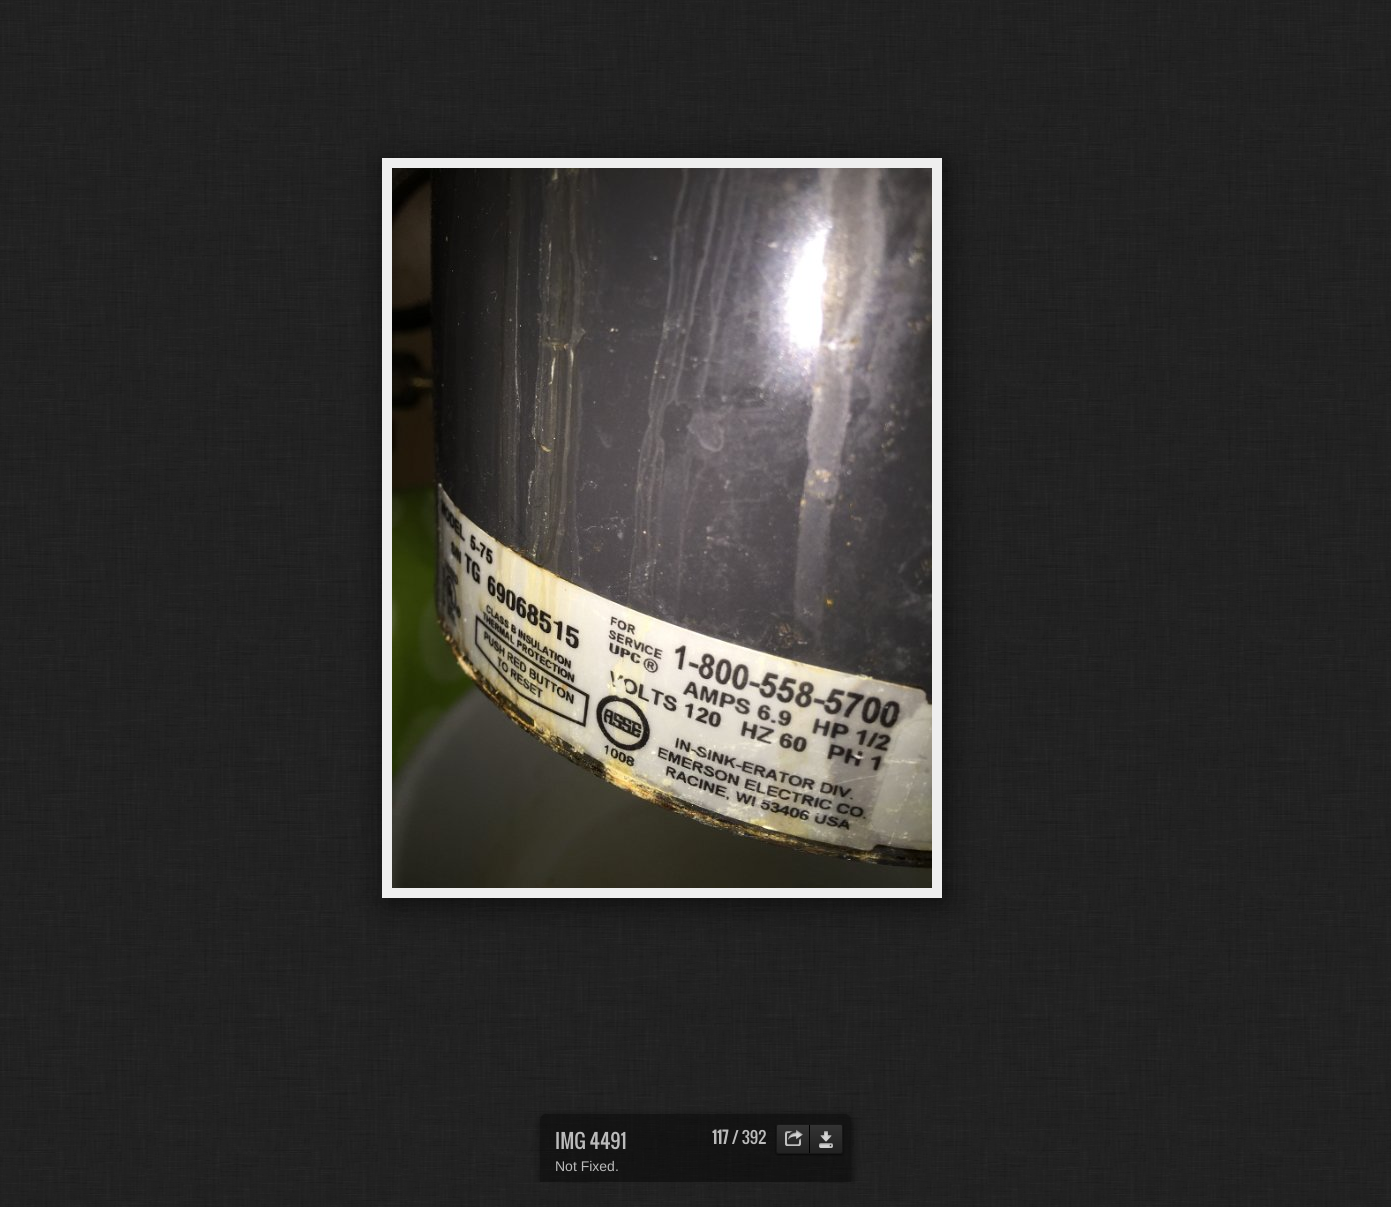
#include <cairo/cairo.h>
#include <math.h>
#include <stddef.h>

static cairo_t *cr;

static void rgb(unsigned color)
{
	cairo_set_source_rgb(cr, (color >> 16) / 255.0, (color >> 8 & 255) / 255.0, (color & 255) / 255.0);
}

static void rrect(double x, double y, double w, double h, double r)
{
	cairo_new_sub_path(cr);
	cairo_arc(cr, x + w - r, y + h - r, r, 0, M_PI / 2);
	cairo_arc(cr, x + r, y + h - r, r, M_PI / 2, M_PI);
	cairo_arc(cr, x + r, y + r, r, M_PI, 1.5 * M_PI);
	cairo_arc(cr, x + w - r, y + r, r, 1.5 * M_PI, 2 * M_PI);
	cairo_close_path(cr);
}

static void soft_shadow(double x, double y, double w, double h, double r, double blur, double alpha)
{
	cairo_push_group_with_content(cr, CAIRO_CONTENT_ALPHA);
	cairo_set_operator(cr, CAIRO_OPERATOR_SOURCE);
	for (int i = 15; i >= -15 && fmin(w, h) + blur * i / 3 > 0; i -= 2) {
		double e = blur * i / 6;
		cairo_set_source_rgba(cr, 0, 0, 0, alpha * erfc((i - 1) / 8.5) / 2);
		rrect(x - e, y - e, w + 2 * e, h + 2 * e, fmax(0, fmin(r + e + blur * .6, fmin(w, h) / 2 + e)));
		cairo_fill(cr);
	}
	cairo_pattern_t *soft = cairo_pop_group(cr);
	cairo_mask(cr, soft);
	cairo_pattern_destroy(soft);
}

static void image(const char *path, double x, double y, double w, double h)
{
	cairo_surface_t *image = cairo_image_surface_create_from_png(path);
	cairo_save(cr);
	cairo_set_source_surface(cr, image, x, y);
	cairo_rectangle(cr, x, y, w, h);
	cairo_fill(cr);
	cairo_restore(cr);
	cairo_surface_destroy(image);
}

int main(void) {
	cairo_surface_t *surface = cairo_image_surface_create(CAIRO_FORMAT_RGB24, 1391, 1207);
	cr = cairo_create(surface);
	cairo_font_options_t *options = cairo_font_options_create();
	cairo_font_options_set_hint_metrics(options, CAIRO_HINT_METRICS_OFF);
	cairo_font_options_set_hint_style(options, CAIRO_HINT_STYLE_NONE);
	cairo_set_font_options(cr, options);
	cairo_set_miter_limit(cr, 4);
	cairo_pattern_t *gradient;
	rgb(0x222222);
	cairo_paint(cr);
	image("img/1.png", 0, 1182, 1391, 25);
	image("img/2.png", 0, 0, 1391, 1182);
	rgb(0x000000);
	soft_shadow(385, 164, 560, 740, 0, 16, 0.6);
	rgb(0xeeeeee);
	cairo_rectangle(cr, 382, 158, 560, 740);
	cairo_fill(cr);
	image("img/3.png", 392, 168, 540, 720);
	cairo_save(cr);
	cairo_rectangle(cr, 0, 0, 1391, 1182);
	cairo_clip(cr);
	cairo_set_fill_rule(cr, CAIRO_FILL_RULE_EVEN_ODD);
	cairo_new_path(cr);
	cairo_move_to(cr, 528, 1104);
	cairo_line_to(cr, 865, 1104);
	cairo_line_to(cr, 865, 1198);
	cairo_line_to(cr, 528, 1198);
	cairo_close_path(cr);
	cairo_move_to(cr, 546, 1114);
	cairo_line_to(cr, 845, 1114);
	cairo_curve_to(cr, 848.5, 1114, 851, 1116.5, 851, 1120);
	cairo_line_to(cr, 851, 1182);
	cairo_line_to(cr, 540, 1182);
	cairo_line_to(cr, 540, 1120);
	cairo_curve_to(cr, 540, 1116.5, 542.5, 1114, 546, 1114);
	cairo_close_path(cr);
	cairo_clip(cr);
	rgb(0x000000);
	soft_shadow(541, 1117, 311, 68, 6, 4, 0.6);
	cairo_restore(cr);
	cairo_set_source_rgba(cr, 0, 0, 0, 0.4);
	cairo_new_path(cr);
	cairo_move_to(cr, 546, 1114);
	cairo_line_to(cr, 845, 1114);
	cairo_curve_to(cr, 848.5, 1114, 851, 1116.5, 851, 1120);
	cairo_line_to(cr, 851, 1182);
	cairo_line_to(cr, 540, 1182);
	cairo_line_to(cr, 540, 1120);
	cairo_curve_to(cr, 540, 1116.5, 542.5, 1114, 546, 1114);
	cairo_close_path(cr);
	cairo_fill(cr);
	rgb(0x000000);
	soft_shadow(776, 1125, 67, 30, 2, 1, 0.6);
	gradient = cairo_pattern_create_linear(810, 1125, 810, 1153);
	cairo_pattern_add_color_stop_rgba(gradient, 0, 0.2, 0.2, 0.2, 1);
	cairo_pattern_add_color_stop_rgba(gradient, 1, 0.133, 0.133, 0.133, 1);
	cairo_set_source(cr, gradient);
	cairo_pattern_destroy(gradient);
	rrect(777, 1125, 65, 28, 1);
	cairo_fill(cr);
	rrect(776.5, 1124.5, 66, 29, 1.5);
	rgb(0x181818);
	cairo_set_line_width(cr, 1);
	cairo_stroke(cr);
	image("img/4.png", 785, 1129, 18, 17);
	image("img/5.png", 819, 1131, 14, 17);
	rgb(0x000000);
	cairo_rectangle(cr, 809, 1125, 1, 28);
	cairo_fill(cr);
	cairo_select_font_face(cr, "Oswald", CAIRO_FONT_SLANT_NORMAL, CAIRO_FONT_WEIGHT_NORMAL);
	cairo_set_font_size(cr, 19.5);
	rgb(0xbbbbbb);
	cairo_move_to(cr, 555, 1149);
	cairo_show_text(cr, "IMG 4491");
	cairo_select_font_face(cr, "Liberation Sans", CAIRO_FONT_SLANT_NORMAL, CAIRO_FONT_WEIGHT_NORMAL);
	cairo_set_font_size(cr, 14);
	cairo_move_to(cr, 555, 1171);
	cairo_show_text(cr, "Not Fixed.");
	cairo_select_font_face(cr, "Oswald", CAIRO_FONT_SLANT_NORMAL, CAIRO_FONT_WEIGHT_BOLD);
	cairo_set_font_size(cr, 16);
	cairo_move_to(cr, 712, 1144);
	cairo_show_text(cr, "117");
	cairo_select_font_face(cr, "Oswald", CAIRO_FONT_SLANT_NORMAL, CAIRO_FONT_WEIGHT_NORMAL);
	cairo_move_to(cr, 732, 1144);
	cairo_show_text(cr, "/ 392");
	cairo_surface_write_to_png(surface, "page.png");
	cairo_font_options_destroy(options);
	cairo_destroy(cr);
	cairo_surface_destroy(surface);
	return 0;
}
